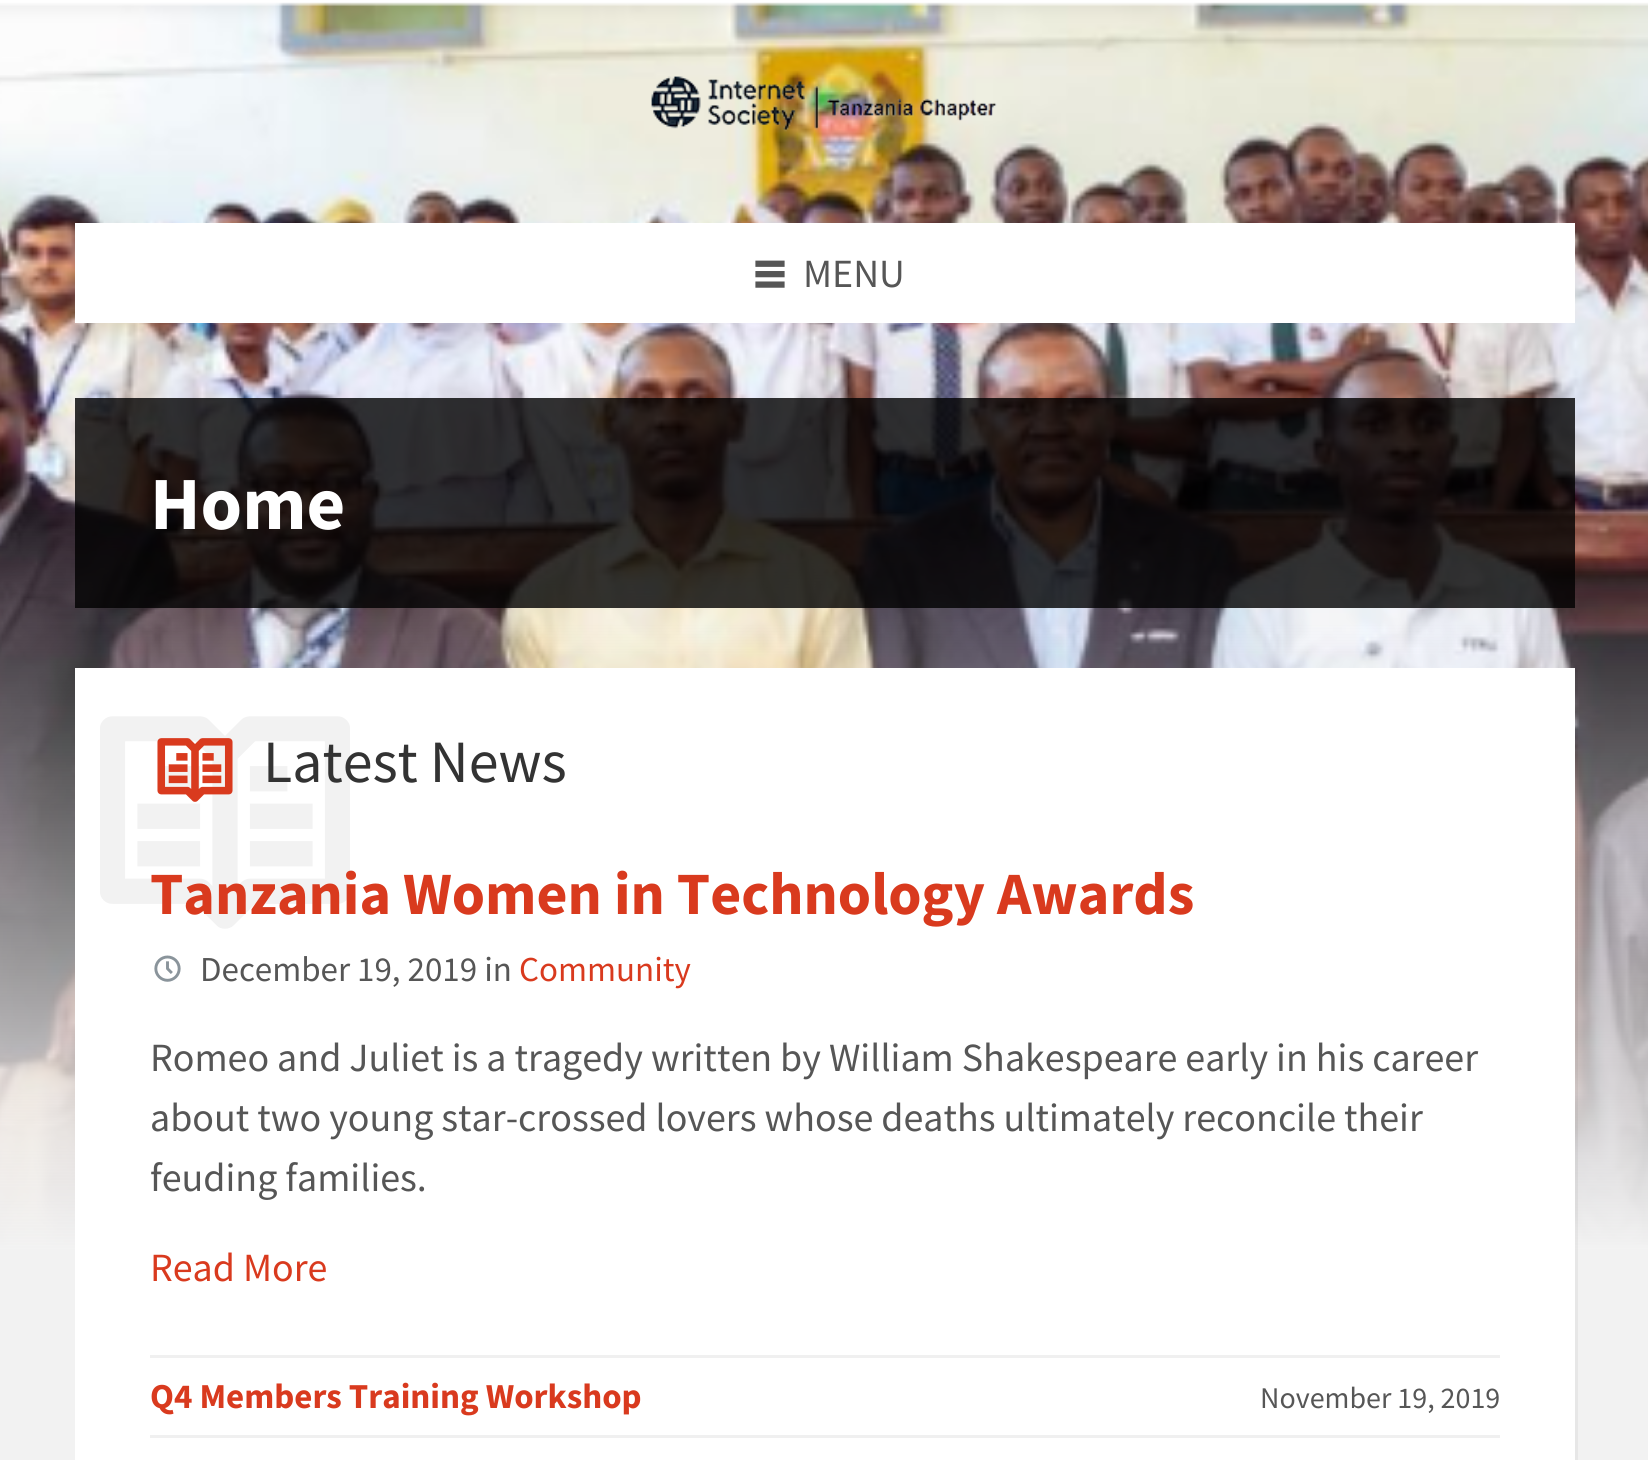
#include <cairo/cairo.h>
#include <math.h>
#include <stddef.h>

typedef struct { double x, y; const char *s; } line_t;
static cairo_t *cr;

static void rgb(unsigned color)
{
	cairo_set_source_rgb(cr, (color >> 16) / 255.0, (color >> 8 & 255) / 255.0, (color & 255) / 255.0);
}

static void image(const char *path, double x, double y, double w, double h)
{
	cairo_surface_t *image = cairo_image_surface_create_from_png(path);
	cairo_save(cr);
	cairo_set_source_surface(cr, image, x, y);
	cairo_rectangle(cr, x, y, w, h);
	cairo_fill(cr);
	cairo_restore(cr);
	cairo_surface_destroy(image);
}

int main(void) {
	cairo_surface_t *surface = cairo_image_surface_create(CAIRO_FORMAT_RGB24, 1648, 1460);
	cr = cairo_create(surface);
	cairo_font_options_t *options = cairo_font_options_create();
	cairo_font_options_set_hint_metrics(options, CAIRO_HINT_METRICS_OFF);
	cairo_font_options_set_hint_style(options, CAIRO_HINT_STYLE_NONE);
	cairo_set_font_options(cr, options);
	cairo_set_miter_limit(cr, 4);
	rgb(0xf2f2f2);
	cairo_paint(cr);
	image("img/1.png", 0, 0, 1648, 1250);
	image("img/2.png", 651, 76, 346, 56);
	rgb(0xffffff);
	cairo_rectangle(cr, 75, 223, 1500, 100);
	cairo_fill(cr);
	image("img/3.png", 755, 260, 30, 28);
	cairo_set_source_rgba(cr, 0, 0, 0, 0.8);
	cairo_rectangle(cr, 75, 398, 1500, 210);
	cairo_fill(cr);
	cairo_set_source_rgba(cr, 0, 0, 0, 0.05);
	cairo_new_path(cr);
	cairo_move_to(cr, 78, 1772);
	cairo_line_to(cr, 78, 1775);
	cairo_line_to(cr, 1578, 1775);
	cairo_line_to(cr, 1578, 670);
	cairo_line_to(cr, 1575, 670);
	cairo_line_to(cr, 1575, 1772);
	cairo_close_path(cr);
	cairo_fill(cr);
	rgb(0xffffff);
	cairo_rectangle(cr, 75, 668, 1500, 792);
	cairo_fill(cr);
	image("img/4.png", 100, 716, 250, 213);
	image("img/5.png", 157, 738, 76, 64);
	image("img/6.png", 154, 955, 27, 27);
	rgb(0xf0f0f0);
	cairo_rectangle(cr, 150, 1355, 1350, 3);
	cairo_fill(cr);
	cairo_rectangle(cr, 150, 1435, 1350, 3);
	cairo_fill(cr);
	cairo_select_font_face(cr, "Source Sans Pro", CAIRO_FONT_SLANT_NORMAL, CAIRO_FONT_WEIGHT_NORMAL);
	cairo_set_font_size(cr, 40);
	rgb(0x565656);
	cairo_move_to(cr, 803, 287);
	cairo_show_text(cr, "MENU");
	cairo_select_font_face(cr, "Source Sans Pro", CAIRO_FONT_SLANT_NORMAL, CAIRO_FONT_WEIGHT_BOLD);
	cairo_set_font_size(cr, 75);
	rgb(0xffffff);
	cairo_move_to(cr, 150, 529);
	cairo_show_text(cr, "Home");
	cairo_select_font_face(cr, "Source Sans Pro", CAIRO_FONT_SLANT_NORMAL, CAIRO_FONT_WEIGHT_NORMAL);
	cairo_set_font_size(cr, 60);
	rgb(0x333333);
	cairo_move_to(cr, 263, 782);
	cairo_show_text(cr, "Latest News");
	cairo_select_font_face(cr, "Source Sans Pro", CAIRO_FONT_SLANT_NORMAL, CAIRO_FONT_WEIGHT_BOLD);
	rgb(0xd93a1e);
	cairo_move_to(cr, 150, 914);
	cairo_show_text(cr, "Tanzania Women in Technology Awards");
	cairo_select_font_face(cr, "Source Sans Pro", CAIRO_FONT_SLANT_NORMAL, CAIRO_FONT_WEIGHT_NORMAL);
	cairo_set_font_size(cr, 35);
	rgb(0x565656);
	cairo_move_to(cr, 200, 981);
	cairo_show_text(cr, "December 19, 2019 in");
	rgb(0xd93a1e);
	cairo_move_to(cr, 519, 981);
	cairo_show_text(cr, "Community");
	cairo_set_font_size(cr, 40);
	rgb(0x565656);
	{
		static const line_t items[] = {
			{150, 1071, "Romeo and Juliet is a tragedy written by William Shakespeare early in his career"},
			{150, 1131, "about two young star-crossed lovers whose deaths ultimately reconcile their"},
			{150, 1191, "feuding families."},
		};
		for (size_t i = 0; i < sizeof items / sizeof *items; i++) {
			cairo_move_to(cr, items[i].x, items[i].y);
			cairo_show_text(cr, items[i].s);
		}
	}
	rgb(0xd93a1e);
	cairo_move_to(cr, 150, 1281);
	cairo_show_text(cr, "Read More");
	cairo_select_font_face(cr, "Source Sans Pro", CAIRO_FONT_SLANT_NORMAL, CAIRO_FONT_WEIGHT_BOLD);
	cairo_set_font_size(cr, 35);
	cairo_move_to(cr, 150, 1408);
	cairo_show_text(cr, "Q4 Members Training Workshop");
	cairo_select_font_face(cr, "Source Sans Pro", CAIRO_FONT_SLANT_NORMAL, CAIRO_FONT_WEIGHT_NORMAL);
	cairo_set_font_size(cr, 30);
	rgb(0x565656);
	cairo_move_to(cr, 1260, 1408);
	cairo_show_text(cr, "November 19, 2019");
	cairo_surface_write_to_png(surface, "page.png");
	cairo_font_options_destroy(options);
	cairo_destroy(cr);
	cairo_surface_destroy(surface);
	return 0;
}
